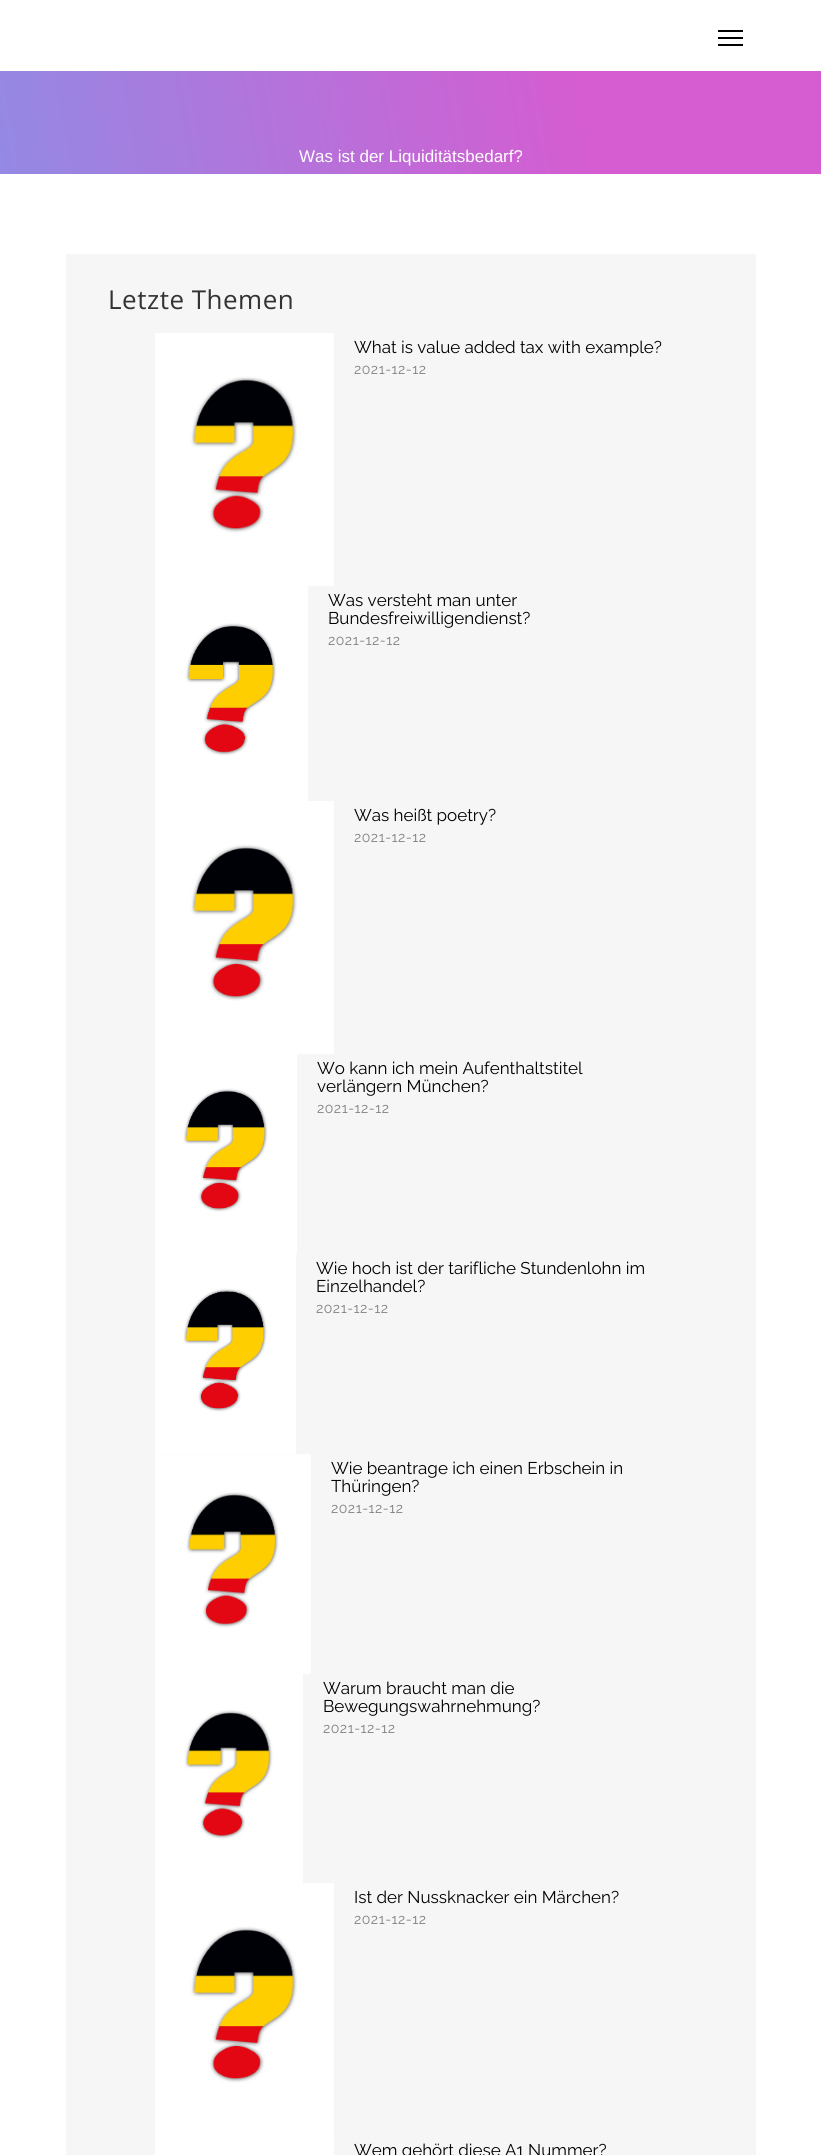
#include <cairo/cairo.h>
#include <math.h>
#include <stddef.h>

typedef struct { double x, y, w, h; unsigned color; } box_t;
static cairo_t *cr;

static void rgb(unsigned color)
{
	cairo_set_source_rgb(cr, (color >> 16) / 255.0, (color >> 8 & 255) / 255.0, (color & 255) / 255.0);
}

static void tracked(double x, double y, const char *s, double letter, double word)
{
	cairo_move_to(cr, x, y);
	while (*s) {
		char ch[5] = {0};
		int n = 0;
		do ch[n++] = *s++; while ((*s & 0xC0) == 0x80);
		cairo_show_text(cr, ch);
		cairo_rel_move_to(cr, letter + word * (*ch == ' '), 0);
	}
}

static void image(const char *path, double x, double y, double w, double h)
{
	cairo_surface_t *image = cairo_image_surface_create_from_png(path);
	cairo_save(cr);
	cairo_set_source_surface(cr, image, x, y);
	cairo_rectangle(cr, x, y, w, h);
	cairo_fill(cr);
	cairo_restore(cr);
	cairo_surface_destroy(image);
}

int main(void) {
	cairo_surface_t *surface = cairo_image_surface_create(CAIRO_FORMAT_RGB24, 821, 2155);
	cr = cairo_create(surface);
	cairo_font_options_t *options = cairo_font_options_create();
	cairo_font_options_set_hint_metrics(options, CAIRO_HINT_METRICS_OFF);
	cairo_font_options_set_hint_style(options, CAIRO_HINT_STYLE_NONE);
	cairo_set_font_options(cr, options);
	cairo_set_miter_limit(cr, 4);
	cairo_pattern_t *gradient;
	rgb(0xffffff);
	cairo_paint(cr);
	{
		static const box_t items[] = {
			{718, 30, 25, 2, 0x000000},
			{718, 37, 25, 2, 0x000000},
			{718, 44, 25, 2, 0x000000},
		};
		for (size_t i = 0; i < sizeof items / sizeof *items; i++) {
			rgb(items[i].color);
			cairo_rectangle(cr, items[i].x, items[i].y, items[i].w, items[i].h);
			cairo_fill(cr);
		}
	}
	gradient = cairo_pattern_create_linear(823, 14, -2.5, 160);
	cairo_pattern_add_color_stop_rgba(gradient, 0.3, 0.835, 0.361, 0.82, 1);
	cairo_pattern_add_color_stop_rgba(gradient, 1, 0.58, 0.537, 0.894, 1);
	cairo_set_source(cr, gradient);
	cairo_pattern_destroy(gradient);
	cairo_rectangle(cr, 0, 71, 821, 103);
	cairo_fill(cr);
	rgb(0xf6f6f6);
	cairo_rectangle(cr, 66, 254, 690, 1901);
	cairo_fill(cr);
	image("img/1.png", 155, 333, 179, 253);
	image("img/2.png", 155, 586, 153, 215);
	image("img/3.png", 155, 801, 179, 253);
	image("img/4.png", 155, 1054, 142, 200);
	image("img/5.png", 155, 1254, 141, 200);
	image("img/6.png", 155, 1454, 156, 220);
	image("img/7.png", 155, 1674, 148, 209);
	image("img/3.png", 155, 1883, 179, 253);
	rgb(0xffffff);
	cairo_rectangle(cr, 155, 2136, 179, 19);
	cairo_fill(cr);
	cairo_select_font_face(cr, "Liberation Sans", CAIRO_FONT_SLANT_NORMAL, CAIRO_FONT_WEIGHT_NORMAL);
	cairo_set_font_size(cr, 17);
	cairo_move_to(cr, 299, 162);
	cairo_show_text(cr, "Was ist der Liquiditätsbedarf?");
	cairo_select_font_face(cr, "Open Sans", CAIRO_FONT_SLANT_NORMAL, CAIRO_FONT_WEIGHT_NORMAL);
	cairo_set_font_size(cr, 26);
	rgb(0x333333);
	tracked(108, 309, "Letzte Themen", 0.5, 0);
	cairo_select_font_face(cr, "Raleway", CAIRO_FONT_SLANT_NORMAL, CAIRO_FONT_WEIGHT_NORMAL);
	cairo_set_font_size(cr, 17);
	rgb(0x000000);
	cairo_move_to(cr, 354, 353);
	cairo_show_text(cr, "What is value added tax with example?");
	cairo_set_font_size(cr, 14);
	rgb(0x808080);
	tracked(354, 374, "2021-12-12", 0.5, 0);
	cairo_set_font_size(cr, 17);
	rgb(0x000000);
	cairo_move_to(cr, 328, 606);
	cairo_show_text(cr, "Was versteht man unter");
	cairo_move_to(cr, 328, 624);
	cairo_show_text(cr, "Bundesfreiwilligendienst?");
	cairo_set_font_size(cr, 14);
	rgb(0x808080);
	tracked(328, 645, "2021-12-12", 0.5, 0);
	cairo_set_font_size(cr, 17);
	rgb(0x000000);
	cairo_move_to(cr, 354, 821);
	cairo_show_text(cr, "Was heißt poetry?");
	cairo_set_font_size(cr, 14);
	rgb(0x808080);
	tracked(354, 842, "2021-12-12", 0.5, 0);
	cairo_set_font_size(cr, 17);
	rgb(0x000000);
	cairo_move_to(cr, 317, 1074);
	cairo_show_text(cr, "Wo kann ich mein Aufenthaltstitel");
	cairo_move_to(cr, 317, 1092);
	cairo_show_text(cr, "verlängern München?");
	cairo_set_font_size(cr, 14);
	rgb(0x808080);
	tracked(317, 1113, "2021-12-12", 0.5, 0);
	cairo_set_font_size(cr, 17);
	rgb(0x000000);
	cairo_move_to(cr, 316, 1274);
	cairo_show_text(cr, "Wie hoch ist der tarifliche Stundenlohn im");
	cairo_move_to(cr, 316, 1292);
	cairo_show_text(cr, "Einzelhandel?");
	cairo_set_font_size(cr, 14);
	rgb(0x808080);
	tracked(316, 1313, "2021-12-12", 0.5, 0);
	cairo_set_font_size(cr, 17);
	rgb(0x000000);
	cairo_move_to(cr, 331, 1474);
	cairo_show_text(cr, "Wie beantrage ich einen Erbschein in");
	cairo_move_to(cr, 331, 1492);
	cairo_show_text(cr, "Thüringen?");
	cairo_set_font_size(cr, 14);
	rgb(0x808080);
	tracked(331, 1513, "2021-12-12", 0.5, 0);
	cairo_set_font_size(cr, 17);
	rgb(0x000000);
	cairo_move_to(cr, 323, 1694);
	cairo_show_text(cr, "Warum braucht man die");
	cairo_move_to(cr, 323, 1712);
	cairo_show_text(cr, "Bewegungswahrnehmung?");
	cairo_set_font_size(cr, 14);
	rgb(0x808080);
	tracked(323, 1733, "2021-12-12", 0.5, 0);
	cairo_set_font_size(cr, 17);
	rgb(0x000000);
	cairo_move_to(cr, 354, 1903);
	cairo_show_text(cr, "Ist der Nussknacker ein Märchen?");
	cairo_set_font_size(cr, 14);
	rgb(0x808080);
	tracked(354, 1924, "2021-12-12", 0.5, 0);
	cairo_set_font_size(cr, 17);
	rgb(0x000000);
	cairo_move_to(cr, 354, 2156);
	cairo_show_text(cr, "Wem gehört diese A1 Nummer?");
	cairo_surface_write_to_png(surface, "page.png");
	cairo_font_options_destroy(options);
	cairo_destroy(cr);
	cairo_surface_destroy(surface);
	return 0;
}
